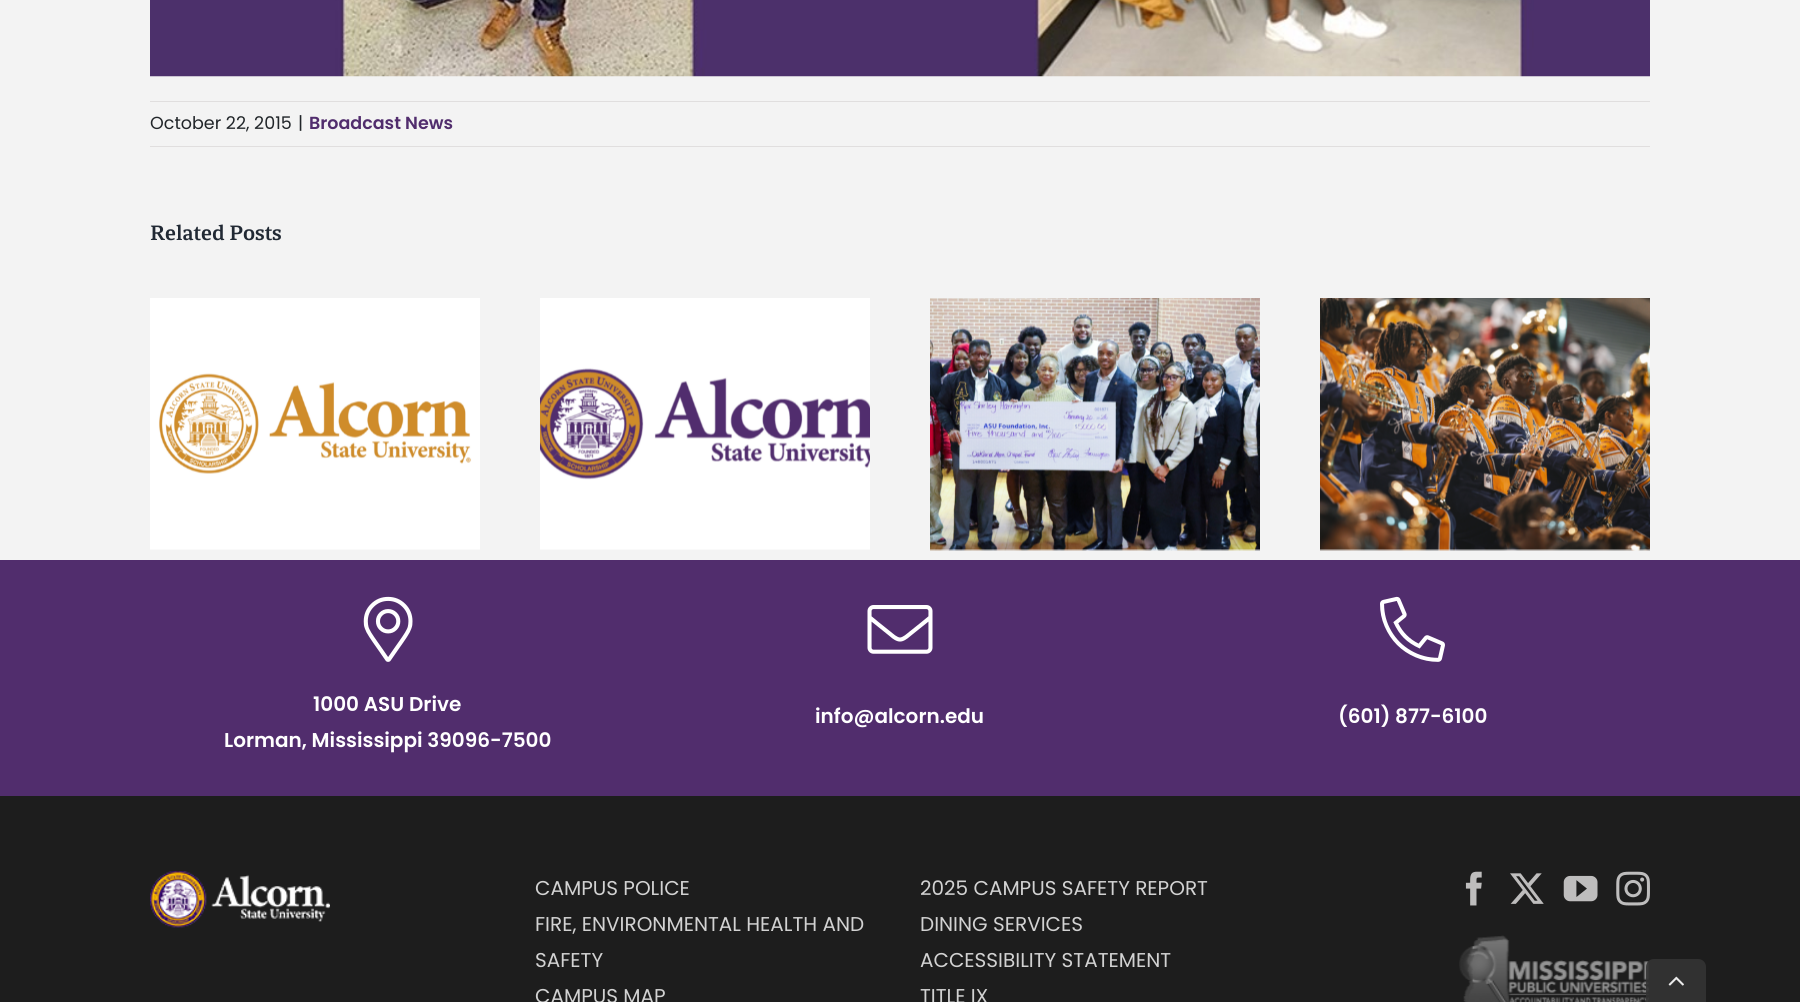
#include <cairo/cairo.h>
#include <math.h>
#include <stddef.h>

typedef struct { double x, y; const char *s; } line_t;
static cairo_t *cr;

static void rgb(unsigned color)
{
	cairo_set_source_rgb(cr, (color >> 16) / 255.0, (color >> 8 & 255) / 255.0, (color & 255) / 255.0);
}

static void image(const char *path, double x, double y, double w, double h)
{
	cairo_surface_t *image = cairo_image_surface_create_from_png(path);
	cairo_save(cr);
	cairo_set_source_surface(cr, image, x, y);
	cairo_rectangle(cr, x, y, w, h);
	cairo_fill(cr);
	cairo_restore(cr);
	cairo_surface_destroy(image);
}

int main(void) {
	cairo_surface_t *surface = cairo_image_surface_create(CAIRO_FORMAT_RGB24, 1800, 1002);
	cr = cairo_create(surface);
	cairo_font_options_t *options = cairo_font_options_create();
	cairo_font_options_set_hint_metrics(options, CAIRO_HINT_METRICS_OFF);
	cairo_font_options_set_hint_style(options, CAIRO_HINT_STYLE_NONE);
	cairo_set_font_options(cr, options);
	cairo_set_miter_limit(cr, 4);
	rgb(0xf3f3f3);
	cairo_paint(cr);
	image("img/1.png", 150, 0, 750, 77);
	image("img/2.png", 900, 0, 750, 77);
	rgb(0xe0dede);
	cairo_rectangle(cr, 150, 101, 1500, 1);
	cairo_fill(cr);
	cairo_rectangle(cr, 150, 146, 1500, 1);
	cairo_fill(cr);
	image("img/3.png", 150, 298, 330, 252);
	image("img/4.png", 540, 298, 330, 252);
	image("img/5.png", 930, 298, 330, 253);
	image("img/6.png", 1320, 298, 330, 253);
	rgb(0x512d6d);
	cairo_rectangle(cr, 0, 560, 1800, 236);
	cairo_fill(cr);
	image("img/7.png", 363, 596, 50, 66);
	image("img/8.png", 867, 605, 66, 49);
	image("img/9.png", 1380, 596, 65, 66);
	rgb(0x1d1d1d);
	cairo_rectangle(cr, 0, 796, 1800, 206);
	cairo_fill(cr);
	image("img/10.png", 150, 871, 180, 57);
	image("img/11.png", 1465, 871, 17, 35);
	image("img/12.png", 1510, 873, 34, 31);
	image("img/13.png", 1563, 875, 35, 27);
	image("img/14.png", 1616, 871, 34, 35);
	image("img/15.png", 1459, 935, 191, 67);
	cairo_set_source_rgba(cr, 0.2, 0.2, 0.2, 0.9);
	cairo_new_path(cr);
	cairo_move_to(cr, 1654, 959);
	cairo_line_to(cr, 1698, 959);
	cairo_curve_to(cr, 1702.5, 959, 1706, 962.5, 1706, 967);
	cairo_line_to(cr, 1706, 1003);
	cairo_line_to(cr, 1646, 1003);
	cairo_line_to(cr, 1646, 967);
	cairo_curve_to(cr, 1646, 962.5, 1649.5, 959, 1654, 959);
	cairo_close_path(cr);
	cairo_fill(cr);
	image("img/16.png", 1668, 976, 16, 10);
	cairo_select_font_face(cr, "Poppins", CAIRO_FONT_SLANT_NORMAL, CAIRO_FONT_WEIGHT_NORMAL);
	cairo_set_font_size(cr, 17.5);
	rgb(0x212529);
	cairo_move_to(cr, 150, 129);
	cairo_show_text(cr, "October 22, 2015");
	cairo_move_to(cr, 298, 129);
	cairo_show_text(cr, "|");
	cairo_select_font_face(cr, "Poppins SemiBold", CAIRO_FONT_SLANT_NORMAL, CAIRO_FONT_WEIGHT_NORMAL);
	rgb(0x512d6d);
	cairo_move_to(cr, 309, 129);
	cairo_show_text(cr, "Broadcast News");
	cairo_select_font_face(cr, "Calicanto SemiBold", CAIRO_FONT_SLANT_NORMAL, CAIRO_FONT_WEIGHT_NORMAL);
	cairo_set_font_size(cr, 22.5);
	rgb(0x212934);
	cairo_move_to(cr, 150, 240);
	cairo_show_text(cr, "Related Posts");
	cairo_select_font_face(cr, "Poppins SemiBold", CAIRO_FONT_SLANT_NORMAL, CAIRO_FONT_WEIGHT_NORMAL);
	cairo_set_font_size(cr, 20);
	rgb(0xffffff);
	{
		static const line_t items[] = {
			{313, 711, "1000 ASU Drive"},
			{224, 747, "Lorman, Mississippi 39096-7500"},
			{815, 723, "info@alcorn.edu"},
			{1338, 723, "(601) 877-6100"},
		};
		for (size_t i = 0; i < sizeof items / sizeof *items; i++) {
			cairo_move_to(cr, items[i].x, items[i].y);
			cairo_show_text(cr, items[i].s);
		}
	}
	cairo_select_font_face(cr, "Poppins", CAIRO_FONT_SLANT_NORMAL, CAIRO_FONT_WEIGHT_NORMAL);
	rgb(0xd2d2d2);
	{
		static const line_t items[] = {
			{535, 895, "CAMPUS POLICE"},
			{535, 931, "FIRE, ENVIRONMENTAL HEALTH AND"},
			{535, 967, "SAFETY"},
			{535, 1003, "CAMPUS MAP"},
			{920, 895, "2025 CAMPUS SAFETY REPORT"},
			{920, 931, "DINING SERVICES"},
			{920, 967, "ACCESSIBILITY STATEMENT"},
			{920, 1003, "TITLE IX"},
		};
		for (size_t i = 0; i < sizeof items / sizeof *items; i++) {
			cairo_move_to(cr, items[i].x, items[i].y);
			cairo_show_text(cr, items[i].s);
		}
	}
	cairo_surface_write_to_png(surface, "page.png");
	cairo_font_options_destroy(options);
	cairo_destroy(cr);
	cairo_surface_destroy(surface);
	return 0;
}
